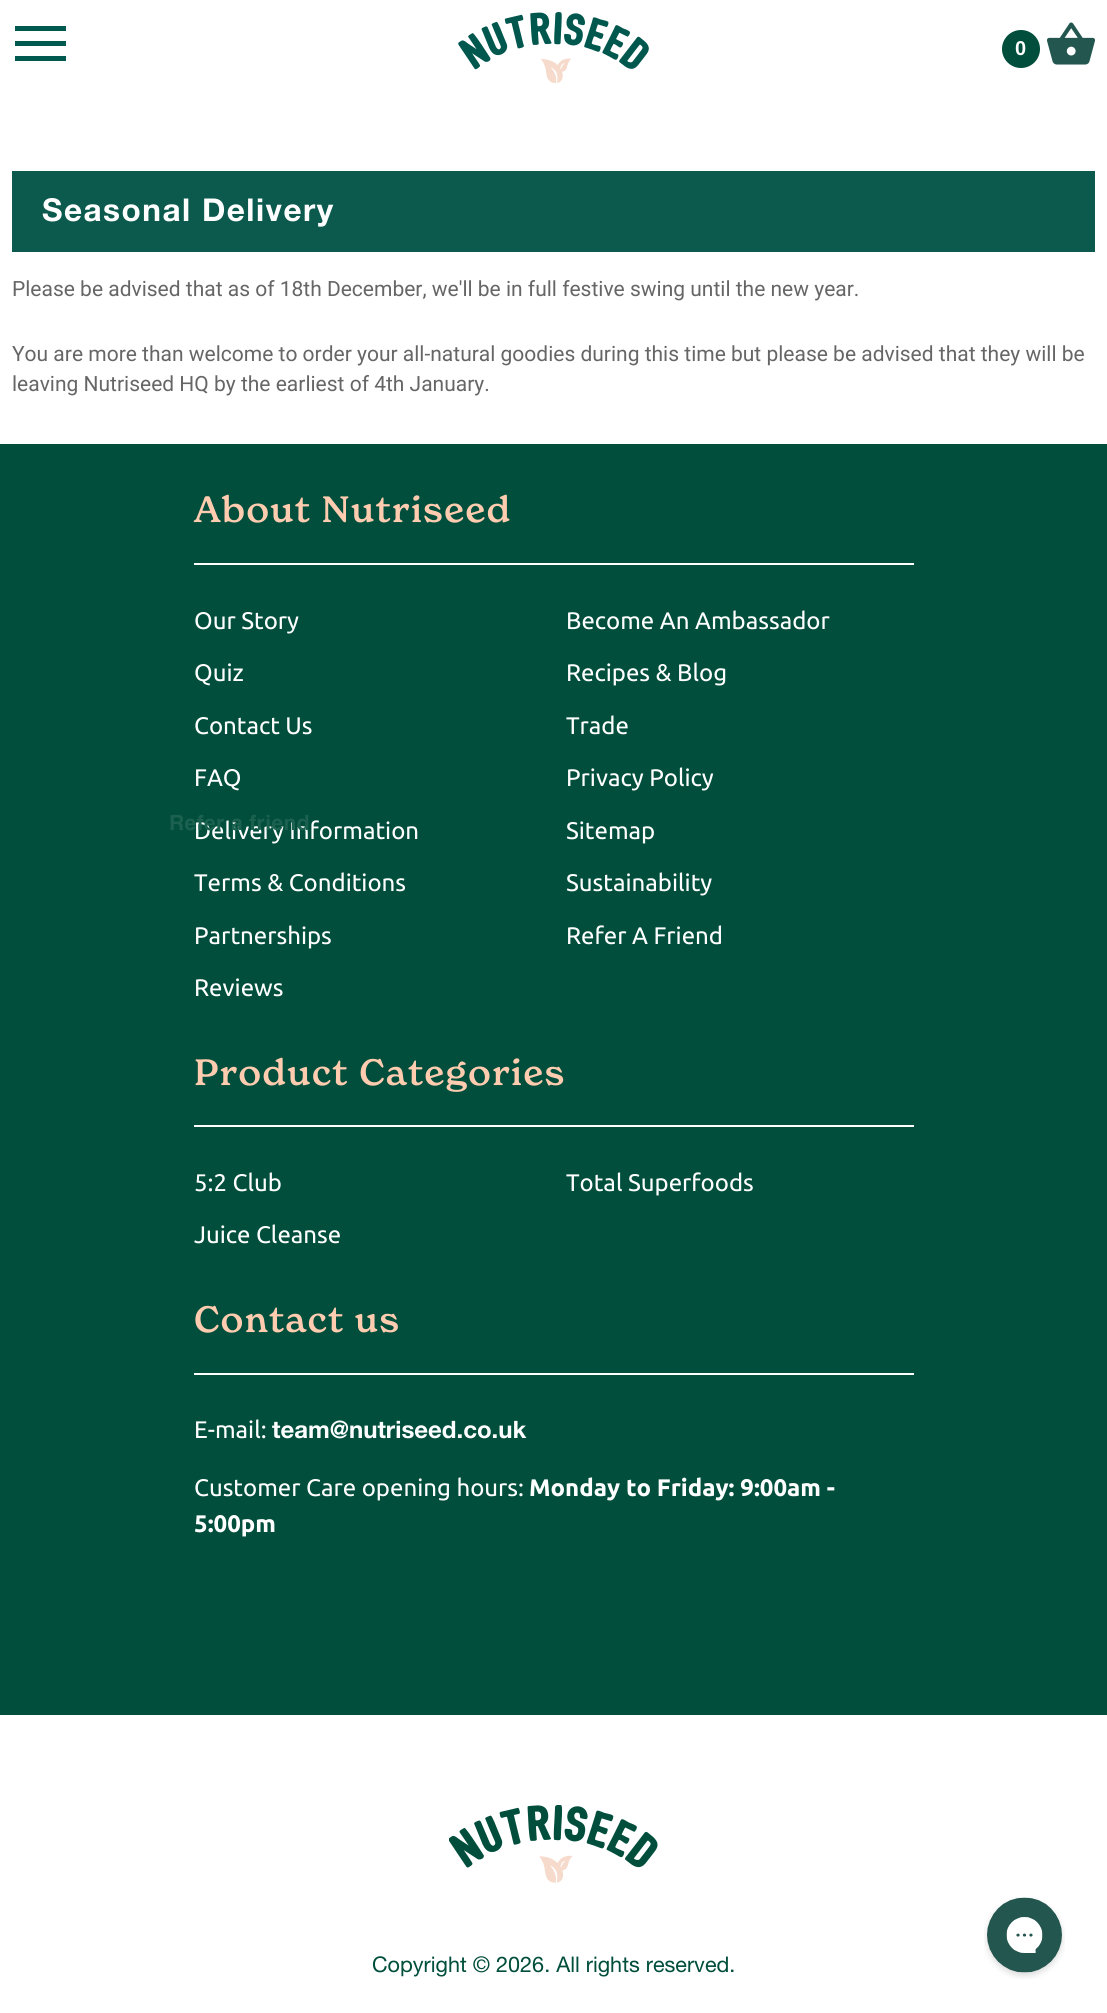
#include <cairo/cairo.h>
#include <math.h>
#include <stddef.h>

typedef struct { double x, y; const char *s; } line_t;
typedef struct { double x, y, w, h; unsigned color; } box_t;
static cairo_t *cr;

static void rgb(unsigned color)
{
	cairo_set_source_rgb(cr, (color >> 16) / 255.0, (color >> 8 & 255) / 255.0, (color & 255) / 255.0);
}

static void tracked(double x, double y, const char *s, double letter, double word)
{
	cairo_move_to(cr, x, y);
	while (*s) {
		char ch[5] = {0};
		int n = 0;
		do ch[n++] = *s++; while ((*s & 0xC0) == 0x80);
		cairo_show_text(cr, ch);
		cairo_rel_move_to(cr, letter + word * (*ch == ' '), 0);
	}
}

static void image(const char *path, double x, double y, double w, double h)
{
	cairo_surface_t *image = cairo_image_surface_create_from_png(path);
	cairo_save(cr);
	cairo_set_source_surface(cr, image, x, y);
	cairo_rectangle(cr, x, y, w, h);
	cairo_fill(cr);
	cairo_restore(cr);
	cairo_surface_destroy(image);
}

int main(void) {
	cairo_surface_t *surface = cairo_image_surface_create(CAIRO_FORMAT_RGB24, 1107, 2013);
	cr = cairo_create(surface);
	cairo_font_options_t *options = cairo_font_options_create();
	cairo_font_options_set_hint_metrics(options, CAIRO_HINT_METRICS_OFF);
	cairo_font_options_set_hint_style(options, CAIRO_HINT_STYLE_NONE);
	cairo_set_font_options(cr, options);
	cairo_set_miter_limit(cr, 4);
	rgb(0xffffff);
	cairo_paint(cr);
	{
		static const box_t items[] = {
			{15, 26, 51, 5, 0x00594e},
			{15, 41, 51, 5, 0x00594e},
			{15, 56, 51, 5, 0x00594e},
		};
		for (size_t i = 0; i < sizeof items / sizeof *items; i++) {
			rgb(items[i].color);
			cairo_rectangle(cr, items[i].x, items[i].y, items[i].w, items[i].h);
			cairo_fill(cr);
		}
	}
	image("img/1.png", 458, 12, 191, 71);
	image("img/2.png", 1047, 22, 48, 43);
	rgb(0x004e3b);
	cairo_arc(cr, 1021, 49, 19, 0, 2 * M_PI);
	cairo_fill(cr);
	{
		static const box_t items[] = {
			{12, 171, 1083, 81, 0x0c594d},
			{0, 444, 1107, 1271, 0x004e3b},
			{194, 563, 720, 2, 0xffffff},
			{194, 1125, 720, 2, 0xffffff},
			{194, 1373, 720, 2, 0xffffff},
		};
		for (size_t i = 0; i < sizeof items / sizeof *items; i++) {
			rgb(items[i].color);
			cairo_rectangle(cr, items[i].x, items[i].y, items[i].w, items[i].h);
			cairo_fill(cr);
		}
	}
	image("img/3.png", 449, 1805, 209, 78);
	image("img/4.png", 984, 1897, 81, 82);
	cairo_select_font_face(cr, "Liberation Sans", CAIRO_FONT_SLANT_NORMAL, CAIRO_FONT_WEIGHT_BOLD);
	cairo_set_font_size(cr, 20);
	cairo_move_to(cr, 1015, 55);
	cairo_show_text(cr, "0");
	cairo_select_font_face(cr, "Helvetica Neue", CAIRO_FONT_SLANT_NORMAL, CAIRO_FONT_WEIGHT_BOLD);
	cairo_set_font_size(cr, 31.5);
	tracked(42, 221, "Seasonal Delivery", 1.5, 0);
	cairo_select_font_face(cr, "Roboto", CAIRO_FONT_SLANT_NORMAL, CAIRO_FONT_WEIGHT_NORMAL);
	cairo_set_font_size(cr, 21);
	rgb(0x666666);
	{
		static const line_t items[] = {
			{12, 296, "Please be advised that as of 18th December, we'll be in full festive swing until the new year."},
			{12, 361, "You are more than welcome to order your all-natural goodies during this time but please be advised that they will be"},
			{12, 391, "leaving Nutriseed HQ by the earliest of 4th January."},
		};
		for (size_t i = 0; i < sizeof items / sizeof *items; i++) {
			cairo_move_to(cr, items[i].x, items[i].y);
			cairo_show_text(cr, items[i].s);
		}
	}
	cairo_select_font_face(cr, "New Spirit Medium", CAIRO_FONT_SLANT_NORMAL, CAIRO_FONT_WEIGHT_NORMAL);
	cairo_set_font_size(cr, 36);
	rgb(0xffccb0);
	tracked(194, 522, "About Nutriseed", 1.5, 0);
	cairo_select_font_face(cr, "Ubuntu", CAIRO_FONT_SLANT_NORMAL, CAIRO_FONT_WEIGHT_NORMAL);
	cairo_set_font_size(cr, 24);
	rgb(0xffffff);
	{
		static const line_t items[] = {
			{194, 629, "Our Story"},
			{566, 629, "Become An Ambassador"},
			{194, 681, "Quiz"},
			{566, 681, "Recipes & Blog"},
			{194, 734, "Contact Us"},
			{566, 734, "Trade"},
			{194, 786, "FAQ"},
			{566, 786, "Privacy Policy"},
			{194, 839, "Delivery Information"},
			{566, 839, "Sitemap"},
			{194, 891, "Terms & Conditions"},
			{566, 891, "Sustainability"},
			{194, 944, "Partnerships"},
			{566, 944, "Refer A Friend"},
			{194, 996, "Reviews"},
		};
		for (size_t i = 0; i < sizeof items / sizeof *items; i++) {
			cairo_move_to(cr, items[i].x, items[i].y);
			cairo_show_text(cr, items[i].s);
		}
	}
	cairo_select_font_face(cr, "New Spirit Medium", CAIRO_FONT_SLANT_NORMAL, CAIRO_FONT_WEIGHT_NORMAL);
	cairo_set_font_size(cr, 36);
	rgb(0xffccb0);
	tracked(194, 1085, "Product Categories", 1.5, 0);
	cairo_select_font_face(cr, "Ubuntu", CAIRO_FONT_SLANT_NORMAL, CAIRO_FONT_WEIGHT_NORMAL);
	cairo_set_font_size(cr, 24);
	rgb(0xffffff);
	{
		static const line_t items[] = {
			{194, 1191, "5:2 Club"},
			{566, 1191, "Total Superfoods"},
			{194, 1243, "Juice Cleanse"},
		};
		for (size_t i = 0; i < sizeof items / sizeof *items; i++) {
			cairo_move_to(cr, items[i].x, items[i].y);
			cairo_show_text(cr, items[i].s);
		}
	}
	cairo_select_font_face(cr, "New Spirit Medium", CAIRO_FONT_SLANT_NORMAL, CAIRO_FONT_WEIGHT_NORMAL);
	cairo_set_font_size(cr, 36);
	rgb(0xffccb0);
	tracked(194, 1332, "Contact us", 1.5, 0);
	cairo_select_font_face(cr, "Ubuntu", CAIRO_FONT_SLANT_NORMAL, CAIRO_FONT_WEIGHT_NORMAL);
	cairo_set_font_size(cr, 24);
	rgb(0xffffff);
	cairo_move_to(cr, 194, 1438);
	cairo_show_text(cr, "E-mail:");
	cairo_select_font_face(cr, "Helvetica Neue", CAIRO_FONT_SLANT_NORMAL, CAIRO_FONT_WEIGHT_BOLD);
	cairo_move_to(cr, 272, 1438);
	cairo_show_text(cr, "team@nutriseed.co.uk");
	cairo_select_font_face(cr, "Ubuntu", CAIRO_FONT_SLANT_NORMAL, CAIRO_FONT_WEIGHT_NORMAL);
	cairo_move_to(cr, 194, 1496);
	cairo_show_text(cr, "Customer Care opening hours:");
	cairo_select_font_face(cr, "Ubuntu", CAIRO_FONT_SLANT_NORMAL, CAIRO_FONT_WEIGHT_BOLD);
	cairo_move_to(cr, 529, 1496);
	cairo_show_text(cr, "Monday to Friday: 9:00am -");
	cairo_move_to(cr, 194, 1532);
	cairo_show_text(cr, "5:00pm");
	cairo_select_font_face(cr, "Helvetica Neue", CAIRO_FONT_SLANT_NORMAL, CAIRO_FONT_WEIGHT_NORMAL);
	cairo_set_font_size(cr, 21.6);
	rgb(0x004e3b);
	cairo_move_to(cr, 372, 1972);
	cairo_show_text(cr, "Copyright © 2026. All rights reserved.");
	cairo_select_font_face(cr, "Helvetica", CAIRO_FONT_SLANT_NORMAL, CAIRO_FONT_WEIGHT_BOLD);
	cairo_set_font_size(cr, 21);
	rgb(0x1c6150);
	tracked(169, 830, "Refer a friend", 0.4, 0);
	cairo_surface_write_to_png(surface, "page.png");
	cairo_font_options_destroy(options);
	cairo_destroy(cr);
	cairo_surface_destroy(surface);
	return 0;
}
